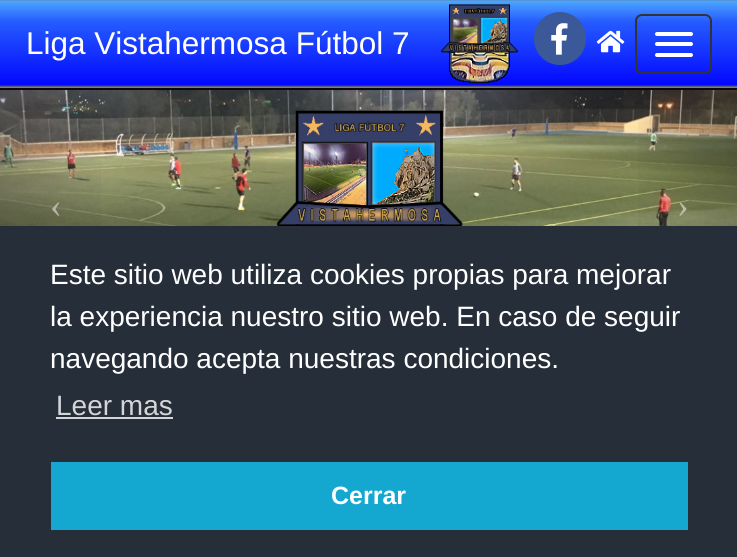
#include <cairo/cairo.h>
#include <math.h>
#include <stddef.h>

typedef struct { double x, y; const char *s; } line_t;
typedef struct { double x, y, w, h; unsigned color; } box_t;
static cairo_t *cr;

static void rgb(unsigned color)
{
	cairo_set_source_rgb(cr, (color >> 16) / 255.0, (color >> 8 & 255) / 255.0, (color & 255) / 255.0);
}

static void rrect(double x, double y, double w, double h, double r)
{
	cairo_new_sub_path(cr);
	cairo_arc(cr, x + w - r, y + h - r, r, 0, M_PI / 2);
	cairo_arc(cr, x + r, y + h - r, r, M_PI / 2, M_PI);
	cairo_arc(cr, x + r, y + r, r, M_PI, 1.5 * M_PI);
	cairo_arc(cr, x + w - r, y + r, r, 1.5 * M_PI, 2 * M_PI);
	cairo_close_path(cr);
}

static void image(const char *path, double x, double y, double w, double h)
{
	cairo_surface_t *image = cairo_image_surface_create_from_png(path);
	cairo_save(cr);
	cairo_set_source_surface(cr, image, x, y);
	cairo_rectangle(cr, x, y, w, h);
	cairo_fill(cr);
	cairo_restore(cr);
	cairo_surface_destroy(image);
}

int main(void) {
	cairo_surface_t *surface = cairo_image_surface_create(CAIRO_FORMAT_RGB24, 737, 557);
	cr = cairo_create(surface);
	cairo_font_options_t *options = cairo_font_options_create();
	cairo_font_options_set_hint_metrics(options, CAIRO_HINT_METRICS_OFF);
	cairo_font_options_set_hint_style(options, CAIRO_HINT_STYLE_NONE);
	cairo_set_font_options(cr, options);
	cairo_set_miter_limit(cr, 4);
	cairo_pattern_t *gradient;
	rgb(0xffffff);
	cairo_paint(cr);
	image("img/1.png", 0, 0, 737, 88);
	rgb(0x080808);
	cairo_rectangle(cr, 0, 88, 737, 2);
	cairo_fill(cr);
	image("img/2.png", 441, 4, 77, 80);
	rgb(0x3b5998);
	rrect(534, 12, 52, 53, 26);
	cairo_fill(cr);
	image("img/3.png", 551, 23, 17, 32);
	image("img/4.png", 596, 30, 29, 23);
	rrect(636, 15, 75, 58, 6);
	rgb(0x333333);
	cairo_stroke(cr);
	rgb(0xffffff);
	rrect(655, 32, 38, 4, 2);
	cairo_fill(cr);
	rrect(655, 42, 38, 4, 2);
	cairo_fill(cr);
	rrect(655, 53, 38, 4, 2);
	cairo_fill(cr);
	image("img/5.png", 0, 90, 737, 136);
	gradient = cairo_pattern_create_linear(0, 206, 110, 206);
	cairo_pattern_add_color_stop_rgba(gradient, 0, 0, 0, 0, 0.25);
	cairo_pattern_add_color_stop_rgba(gradient, 1, 0, 0, 0, 0);
	cairo_set_source(cr, gradient);
	cairo_pattern_destroy(gradient);
	cairo_rectangle(cr, 0, 90, 101, 136);
	cairo_fill(cr);
	gradient = cairo_pattern_create_linear(628, 206, 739, 206);
	cairo_pattern_add_color_stop_rgba(gradient, 0, 0, 0, 0, 0);
	cairo_pattern_add_color_stop_rgba(gradient, 1, 0, 0, 0, 0.25);
	cairo_set_source(cr, gradient);
	cairo_pattern_destroy(gradient);
	cairo_rectangle(cr, 638, 90, 99, 136);
	cairo_fill(cr);
	{
		static const box_t items[] = {
			{0, 226, 737, 331, 0x252e39},
			{56, 417, 117, 2, 0xd3d5d7},
			{51, 462, 637, 68, 0x14a7d0},
		};
		for (size_t i = 0; i < sizeof items / sizeof *items; i++) {
			rgb(items[i].color);
			cairo_rectangle(cr, items[i].x, items[i].y, items[i].w, items[i].h);
			cairo_fill(cr);
		}
	}
	cairo_select_font_face(cr, "Liberation Sans", CAIRO_FONT_SLANT_NORMAL, CAIRO_FONT_WEIGHT_NORMAL);
	cairo_set_font_size(cr, 31.5);
	rgb(0xffffff);
	cairo_move_to(cr, 26, 54);
	cairo_show_text(cr, "Liga Vistahermosa Fútbol 7");
	cairo_select_font_face(cr, "Liberation Serif", CAIRO_FONT_SLANT_NORMAL, CAIRO_FONT_WEIGHT_NORMAL);
	cairo_set_font_size(cr, 35);
	rgb(0xb6b7a8);
	cairo_move_to(cr, 50, 217);
	cairo_show_text(cr, "‹");
	rgb(0xbabea8);
	cairo_move_to(cr, 677, 217);
	cairo_show_text(cr, "›");
	cairo_select_font_face(cr, "Liberation Sans", CAIRO_FONT_SLANT_NORMAL, CAIRO_FONT_WEIGHT_NORMAL);
	cairo_set_font_size(cr, 28);
	rgb(0xffffff);
	{
		static const line_t items[] = {
			{50, 284, "Este sitio web utiliza cookies propias para mejorar"},
			{50, 326, "la experiencia nuestro sitio web. En caso de seguir"},
			{50, 368, "navegando acepta nuestras condiciones."},
		};
		for (size_t i = 0; i < sizeof items / sizeof *items; i++) {
			cairo_move_to(cr, items[i].x, items[i].y);
			cairo_show_text(cr, items[i].s);
		}
	}
	rgb(0xd3d5d7);
	cairo_move_to(cr, 56, 415);
	cairo_show_text(cr, "Leer mas");
	cairo_select_font_face(cr, "Liberation Sans", CAIRO_FONT_SLANT_NORMAL, CAIRO_FONT_WEIGHT_BOLD);
	cairo_set_font_size(cr, 25);
	rgb(0xffffff);
	cairo_move_to(cr, 331, 504);
	cairo_show_text(cr, "Cerrar");
	cairo_surface_write_to_png(surface, "page.png");
	cairo_font_options_destroy(options);
	cairo_destroy(cr);
	cairo_surface_destroy(surface);
	return 0;
}
